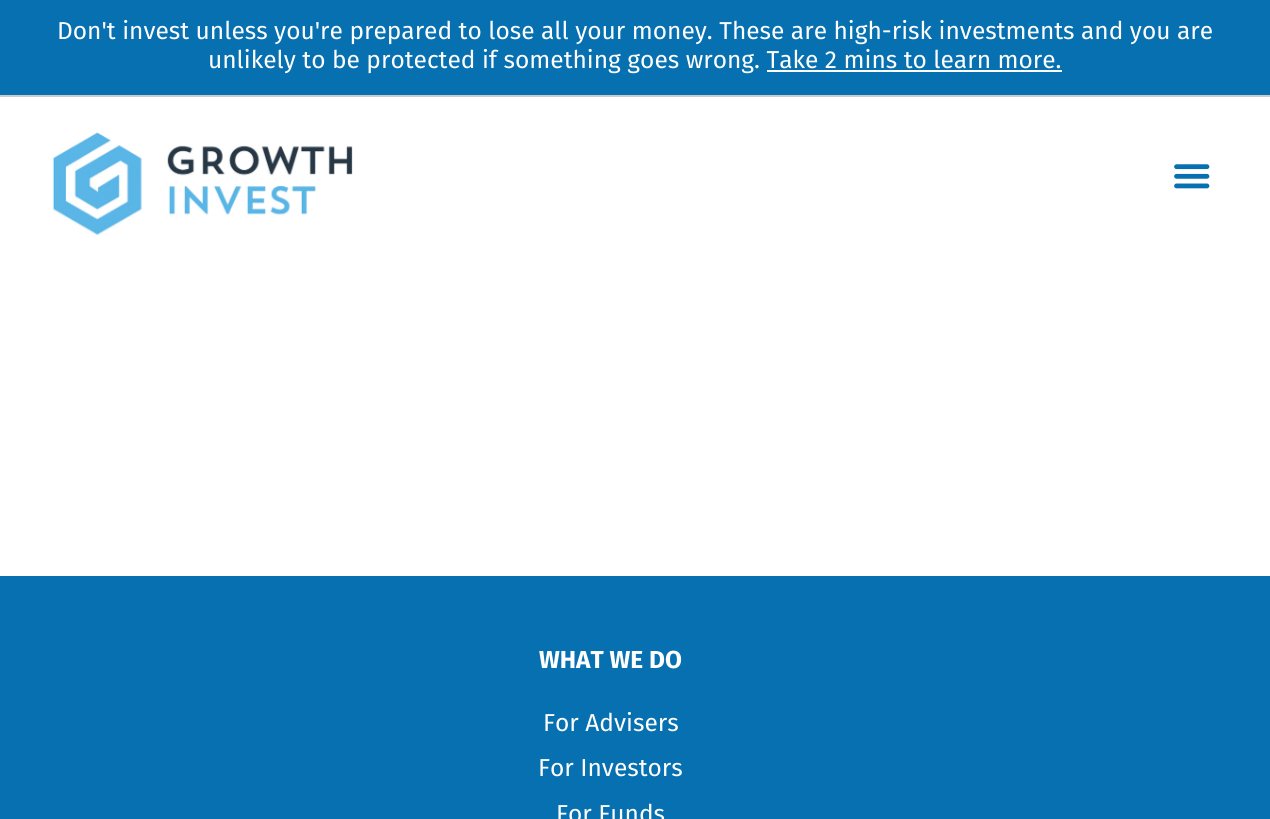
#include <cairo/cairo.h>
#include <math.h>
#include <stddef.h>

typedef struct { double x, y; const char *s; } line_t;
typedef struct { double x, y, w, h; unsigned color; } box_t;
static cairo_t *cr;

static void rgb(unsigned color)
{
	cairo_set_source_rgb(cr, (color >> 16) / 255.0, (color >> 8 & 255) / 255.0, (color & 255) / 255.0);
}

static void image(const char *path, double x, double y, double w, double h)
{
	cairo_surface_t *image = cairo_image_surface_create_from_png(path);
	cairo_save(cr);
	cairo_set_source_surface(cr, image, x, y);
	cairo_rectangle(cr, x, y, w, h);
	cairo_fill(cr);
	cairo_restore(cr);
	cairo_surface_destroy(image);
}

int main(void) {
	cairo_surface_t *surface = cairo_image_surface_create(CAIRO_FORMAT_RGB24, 1270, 819);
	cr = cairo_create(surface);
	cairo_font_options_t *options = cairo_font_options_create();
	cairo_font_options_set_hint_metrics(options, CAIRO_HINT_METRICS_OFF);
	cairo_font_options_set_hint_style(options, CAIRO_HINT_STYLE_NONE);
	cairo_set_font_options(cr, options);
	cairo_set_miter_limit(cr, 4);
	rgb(0xffffff);
	cairo_paint(cr);
	{
		static const box_t items[] = {
			{0, 0, 1270, 95, 0x0670b1},
			{0, 95, 1270, 2, 0xcccccc},
			{767, 70, 295, 2, 0xffffff},
		};
		for (size_t i = 0; i < sizeof items / sizeof *items; i++) {
			rgb(items[i].color);
			cairo_rectangle(cr, items[i].x, items[i].y, items[i].w, items[i].h);
			cairo_fill(cr);
		}
	}
	image("img/1.png", 52, 132, 301, 104);
	image("img/2.png", 1174, 164, 36, 25);
	rgb(0x0670b1);
	cairo_rectangle(cr, 0, 576, 1270, 243);
	cairo_fill(cr);
	cairo_select_font_face(cr, "Fira Sans", CAIRO_FONT_SLANT_NORMAL, CAIRO_FONT_WEIGHT_NORMAL);
	cairo_set_font_size(cr, 24.5);
	rgb(0xffffff);
	cairo_move_to(cr, 57, 39);
	cairo_show_text(cr, "Don't invest unless you're prepared to lose all your money. These are high-risk investments and you are");
	cairo_move_to(cr, 208, 68);
	cairo_show_text(cr, "unlikely to be protected if something goes wrong. Take 2 mins to learn more.");
	cairo_select_font_face(cr, "Fira Sans", CAIRO_FONT_SLANT_NORMAL, CAIRO_FONT_WEIGHT_BOLD);
	cairo_move_to(cr, 539, 668);
	cairo_show_text(cr, "WHAT WE DO");
	cairo_select_font_face(cr, "Fira Sans", CAIRO_FONT_SLANT_NORMAL, CAIRO_FONT_WEIGHT_NORMAL);
	{
		static const line_t items[] = {
			{543, 731, "For Advisers"},
			{538, 776, "For Investors"},
			{556, 822, "For Funds"},
		};
		for (size_t i = 0; i < sizeof items / sizeof *items; i++) {
			cairo_move_to(cr, items[i].x, items[i].y);
			cairo_show_text(cr, items[i].s);
		}
	}
	cairo_surface_write_to_png(surface, "page.png");
	cairo_font_options_destroy(options);
	cairo_destroy(cr);
	cairo_surface_destroy(surface);
	return 0;
}
